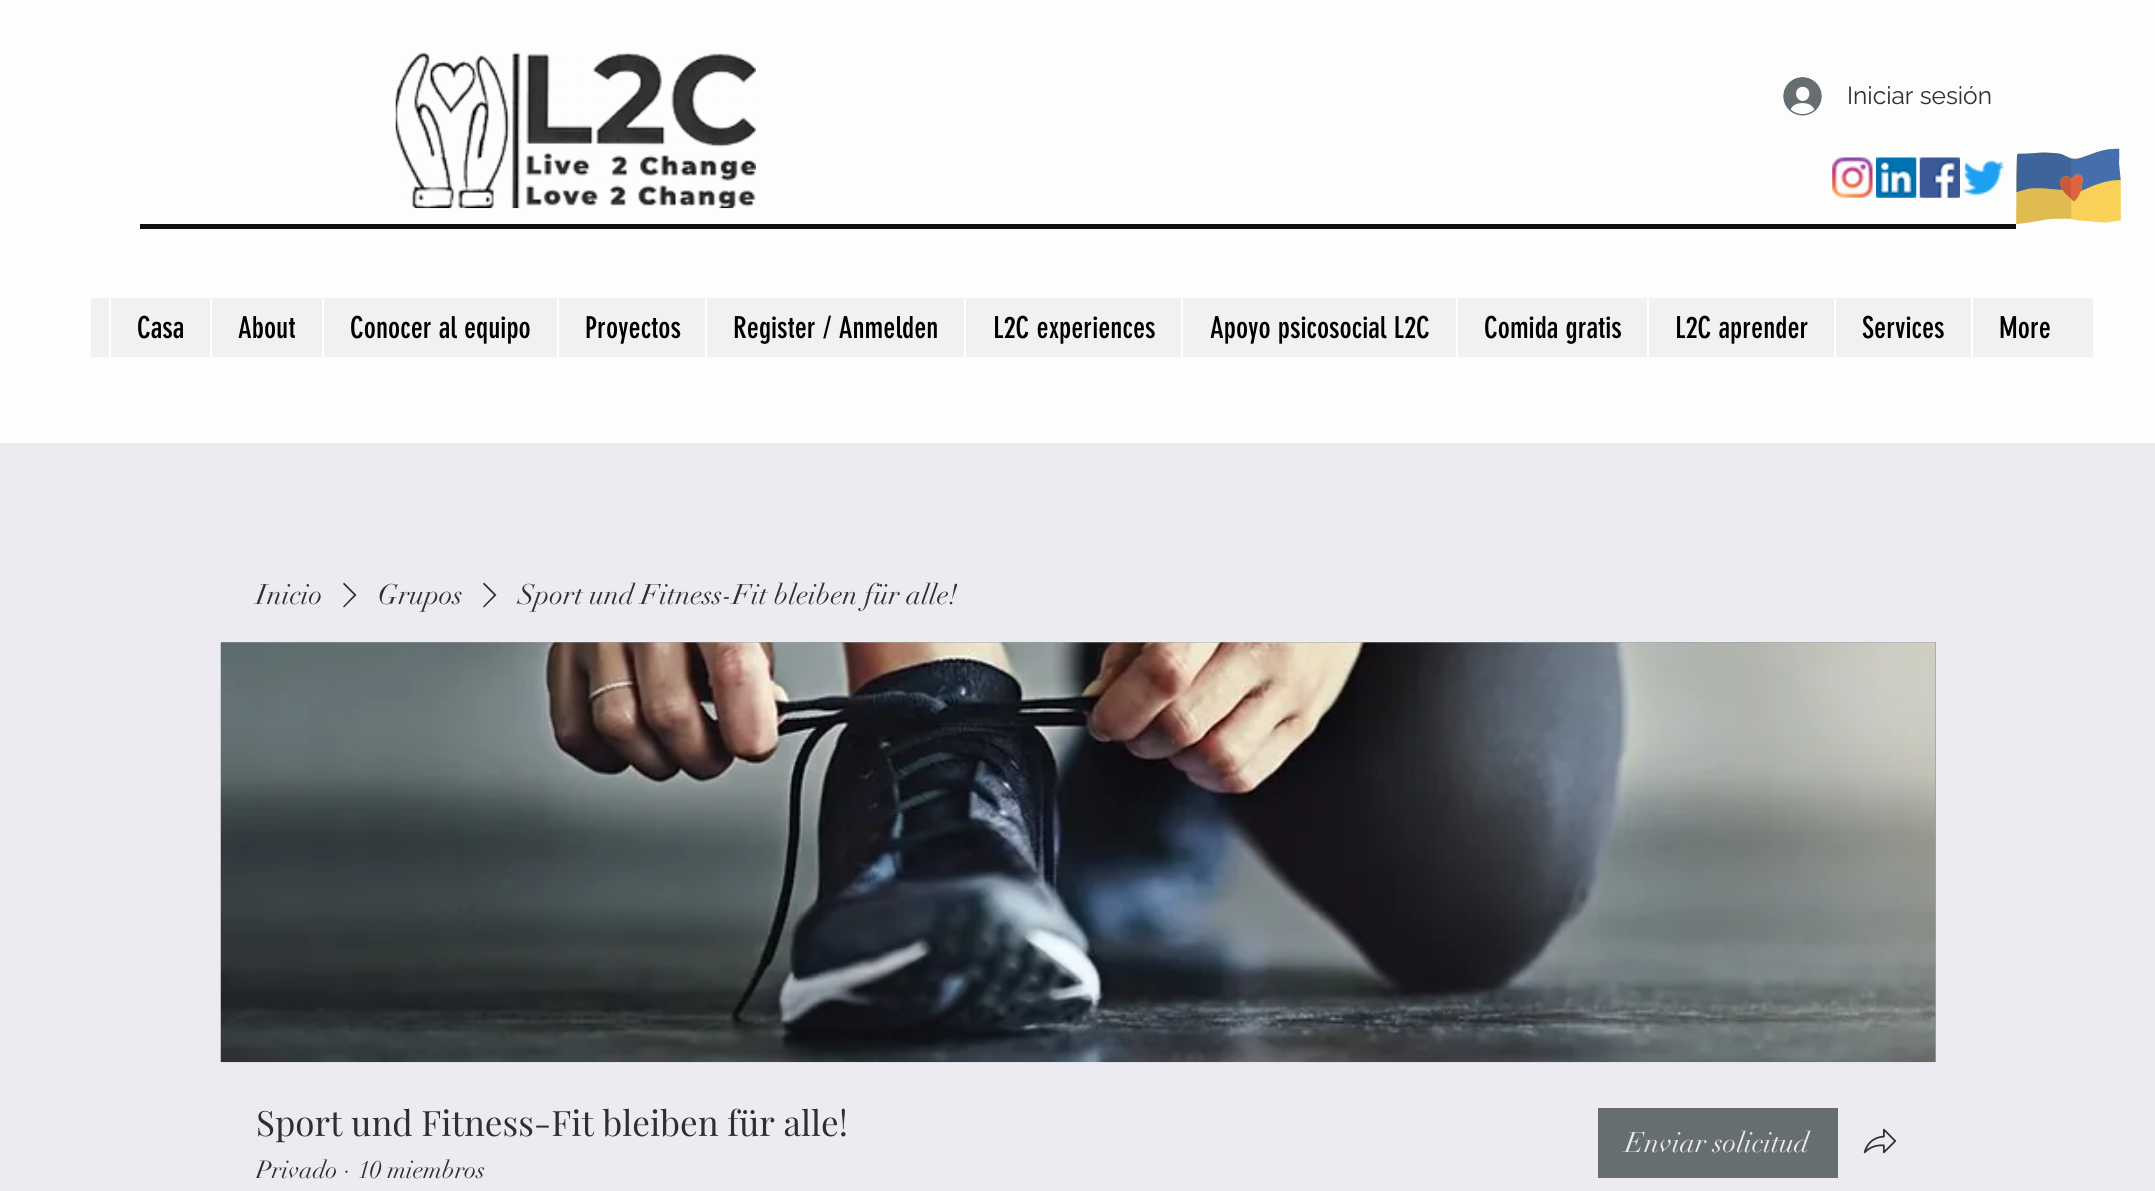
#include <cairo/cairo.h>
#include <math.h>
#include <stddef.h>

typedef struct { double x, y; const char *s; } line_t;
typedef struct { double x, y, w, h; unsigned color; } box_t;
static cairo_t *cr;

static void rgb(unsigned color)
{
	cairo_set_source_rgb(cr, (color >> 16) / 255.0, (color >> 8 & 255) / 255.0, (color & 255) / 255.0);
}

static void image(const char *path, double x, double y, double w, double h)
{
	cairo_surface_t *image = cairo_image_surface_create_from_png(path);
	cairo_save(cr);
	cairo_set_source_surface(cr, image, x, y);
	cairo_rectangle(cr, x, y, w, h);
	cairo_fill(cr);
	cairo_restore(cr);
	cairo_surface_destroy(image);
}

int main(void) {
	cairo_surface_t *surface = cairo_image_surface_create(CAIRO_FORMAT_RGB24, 2155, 1191);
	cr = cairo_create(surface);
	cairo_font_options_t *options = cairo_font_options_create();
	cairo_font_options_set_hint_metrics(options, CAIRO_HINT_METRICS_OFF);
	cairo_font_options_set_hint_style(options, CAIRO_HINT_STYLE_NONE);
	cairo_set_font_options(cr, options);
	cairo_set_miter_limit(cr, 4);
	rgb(0xedebf2);
	cairo_paint(cr);
	rgb(0xfdfdfd);
	cairo_rectangle(cr, 0, 0, 2155, 443);
	cairo_fill(cr);
	image("img/1.png", 395, 52, 361, 157);
	image("img/2.png", 1832, 157, 41, 41);
	image("img/3.png", 1876, 157, 41, 41);
	image("img/4.png", 1919, 157, 41, 41);
	image("img/5.png", 1963, 160, 41, 36);
	image("img/6.png", 2016, 148, 105, 76);
	image("img/7.png", 1783, 77, 39, 39);
	{
		static const box_t items[] = {
			{140, 224, 1876, 5, 0x0f0f0f},
			{91, 298, 2002, 59, 0xf1f1f1},
			{109, 298, 2, 59, 0xffffff},
			{210, 298, 2, 59, 0xffffff},
			{322, 298, 2, 59, 0xffffff},
			{557, 298, 2, 59, 0xffffff},
			{705, 298, 2, 59, 0xffffff},
			{964, 298, 2, 59, 0xffffff},
			{1181, 298, 2, 59, 0xffffff},
			{1456, 298, 2, 59, 0xffffff},
			{1647, 298, 2, 59, 0xffffff},
			{1834, 298, 2, 59, 0xffffff},
			{1971, 298, 2, 59, 0xffffff},
		};
		for (size_t i = 0; i < sizeof items / sizeof *items; i++) {
			rgb(items[i].color);
			cairo_rectangle(cr, items[i].x, items[i].y, items[i].w, items[i].h);
			cairo_fill(cr);
		}
	}
	rgb(0x2f2f30);
	cairo_set_fill_rule(cr, CAIRO_FILL_RULE_EVEN_ODD);
	cairo_new_path(cr);
	cairo_move_to(cr, 344, 582.5);
	cairo_line_to(cr, 356.5, 595);
	cairo_line_to(cr, 344, 607.5);
	cairo_line_to(cr, 343, 606.5);
	cairo_line_to(cr, 354, 595);
	cairo_line_to(cr, 343, 584);
	cairo_close_path(cr);
	cairo_fill(cr);
	cairo_new_path(cr);
	cairo_move_to(cr, 484, 582.5);
	cairo_line_to(cr, 496.5, 595);
	cairo_line_to(cr, 484, 607.5);
	cairo_line_to(cr, 483, 606.5);
	cairo_line_to(cr, 494, 595);
	cairo_line_to(cr, 483, 584);
	cairo_close_path(cr);
	cairo_fill(cr);
	rgb(0x9da0a4);
	cairo_rectangle(cr, 221, 642, 1715, 420);
	cairo_fill(cr);
	image("img/8.png", 220, 642, 1716, 421);
	rgb(0x676e71);
	cairo_rectangle(cr, 1598, 1108, 240, 70);
	cairo_fill(cr);
	image("img/9.png", 1863, 1128, 33, 26);
	cairo_select_font_face(cr, "Raleway", CAIRO_FONT_SLANT_NORMAL, CAIRO_FONT_WEIGHT_NORMAL);
	cairo_set_font_size(cr, 24.5);
	rgb(0x2f2f30);
	cairo_move_to(cr, 1847, 104);
	cairo_show_text(cr, "Iniciar sesión");
	cairo_select_font_face(cr, "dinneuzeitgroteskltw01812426", CAIRO_FONT_SLANT_NORMAL, CAIRO_FONT_WEIGHT_NORMAL);
	cairo_set_font_size(cr, 29.75);
	rgb(0x000000);
	{
		static const line_t items[] = {
			{137, 338, "Casa"},
			{238, 338, "About"},
			{350, 338, "Conocer al equipo"},
			{585, 338, "Proyectos"},
			{733, 338, "Register / Anmelden"},
			{993, 338, "L2C experiences"},
			{1210, 338, "Apoyo psicosocial L2C"},
			{1484, 338, "Comida gratis"},
			{1675, 338, "L2C aprender"},
			{1862, 338, "Services"},
			{1999, 338, "More"},
		};
		for (size_t i = 0; i < sizeof items / sizeof *items; i++) {
			cairo_move_to(cr, items[i].x, items[i].y);
			cairo_show_text(cr, items[i].s);
		}
	}
	cairo_select_font_face(cr, "didot", CAIRO_FONT_SLANT_NORMAL, CAIRO_FONT_WEIGHT_NORMAL);
	cairo_set_font_size(cr, 28);
	rgb(0x2f2f30);
	{
		static const line_t items[] = {
			{256, 604, "Inicio"},
			{378, 604, "Grupos"},
			{518, 604, "Sport und Fitness-Fit bleiben für alle!"},
		};
		for (size_t i = 0; i < sizeof items / sizeof *items; i++) {
			cairo_move_to(cr, items[i].x, items[i].y);
			cairo_show_text(cr, items[i].s);
		}
	}
	cairo_select_font_face(cr, "Playfair Display", CAIRO_FONT_SLANT_NORMAL, CAIRO_FONT_WEIGHT_NORMAL);
	cairo_set_font_size(cr, 35);
	cairo_move_to(cr, 256, 1136);
	cairo_show_text(cr, "Sport und Fitness-Fit bleiben für alle!");
	cairo_save(cr);
	cairo_set_fill_rule(cr, CAIRO_FILL_RULE_WINDING);
	cairo_rectangle(cr, 256, 1153, 591, 35);
	cairo_clip(cr);
	cairo_select_font_face(cr, "didot", CAIRO_FONT_SLANT_NORMAL, CAIRO_FONT_WEIGHT_NORMAL);
	cairo_set_font_size(cr, 24.5);
	cairo_move_to(cr, 256, 1178);
	cairo_show_text(cr, "Privado");
	cairo_restore(cr);
	cairo_select_font_face(cr, "didot", CAIRO_FONT_SLANT_NORMAL, CAIRO_FONT_WEIGHT_NORMAL);
	cairo_set_font_size(cr, 24.5);
	cairo_move_to(cr, 344, 1178);
	cairo_show_text(cr, "·");
	cairo_move_to(cr, 358, 1178);
	cairo_show_text(cr, "10 miembros");
	cairo_set_font_size(cr, 28);
	rgb(0xedebf2);
	cairo_move_to(cr, 1625, 1152);
	cairo_show_text(cr, "Enviar solicitud");
	cairo_surface_write_to_png(surface, "page.png");
	cairo_font_options_destroy(options);
	cairo_destroy(cr);
	cairo_surface_destroy(surface);
	return 0;
}
